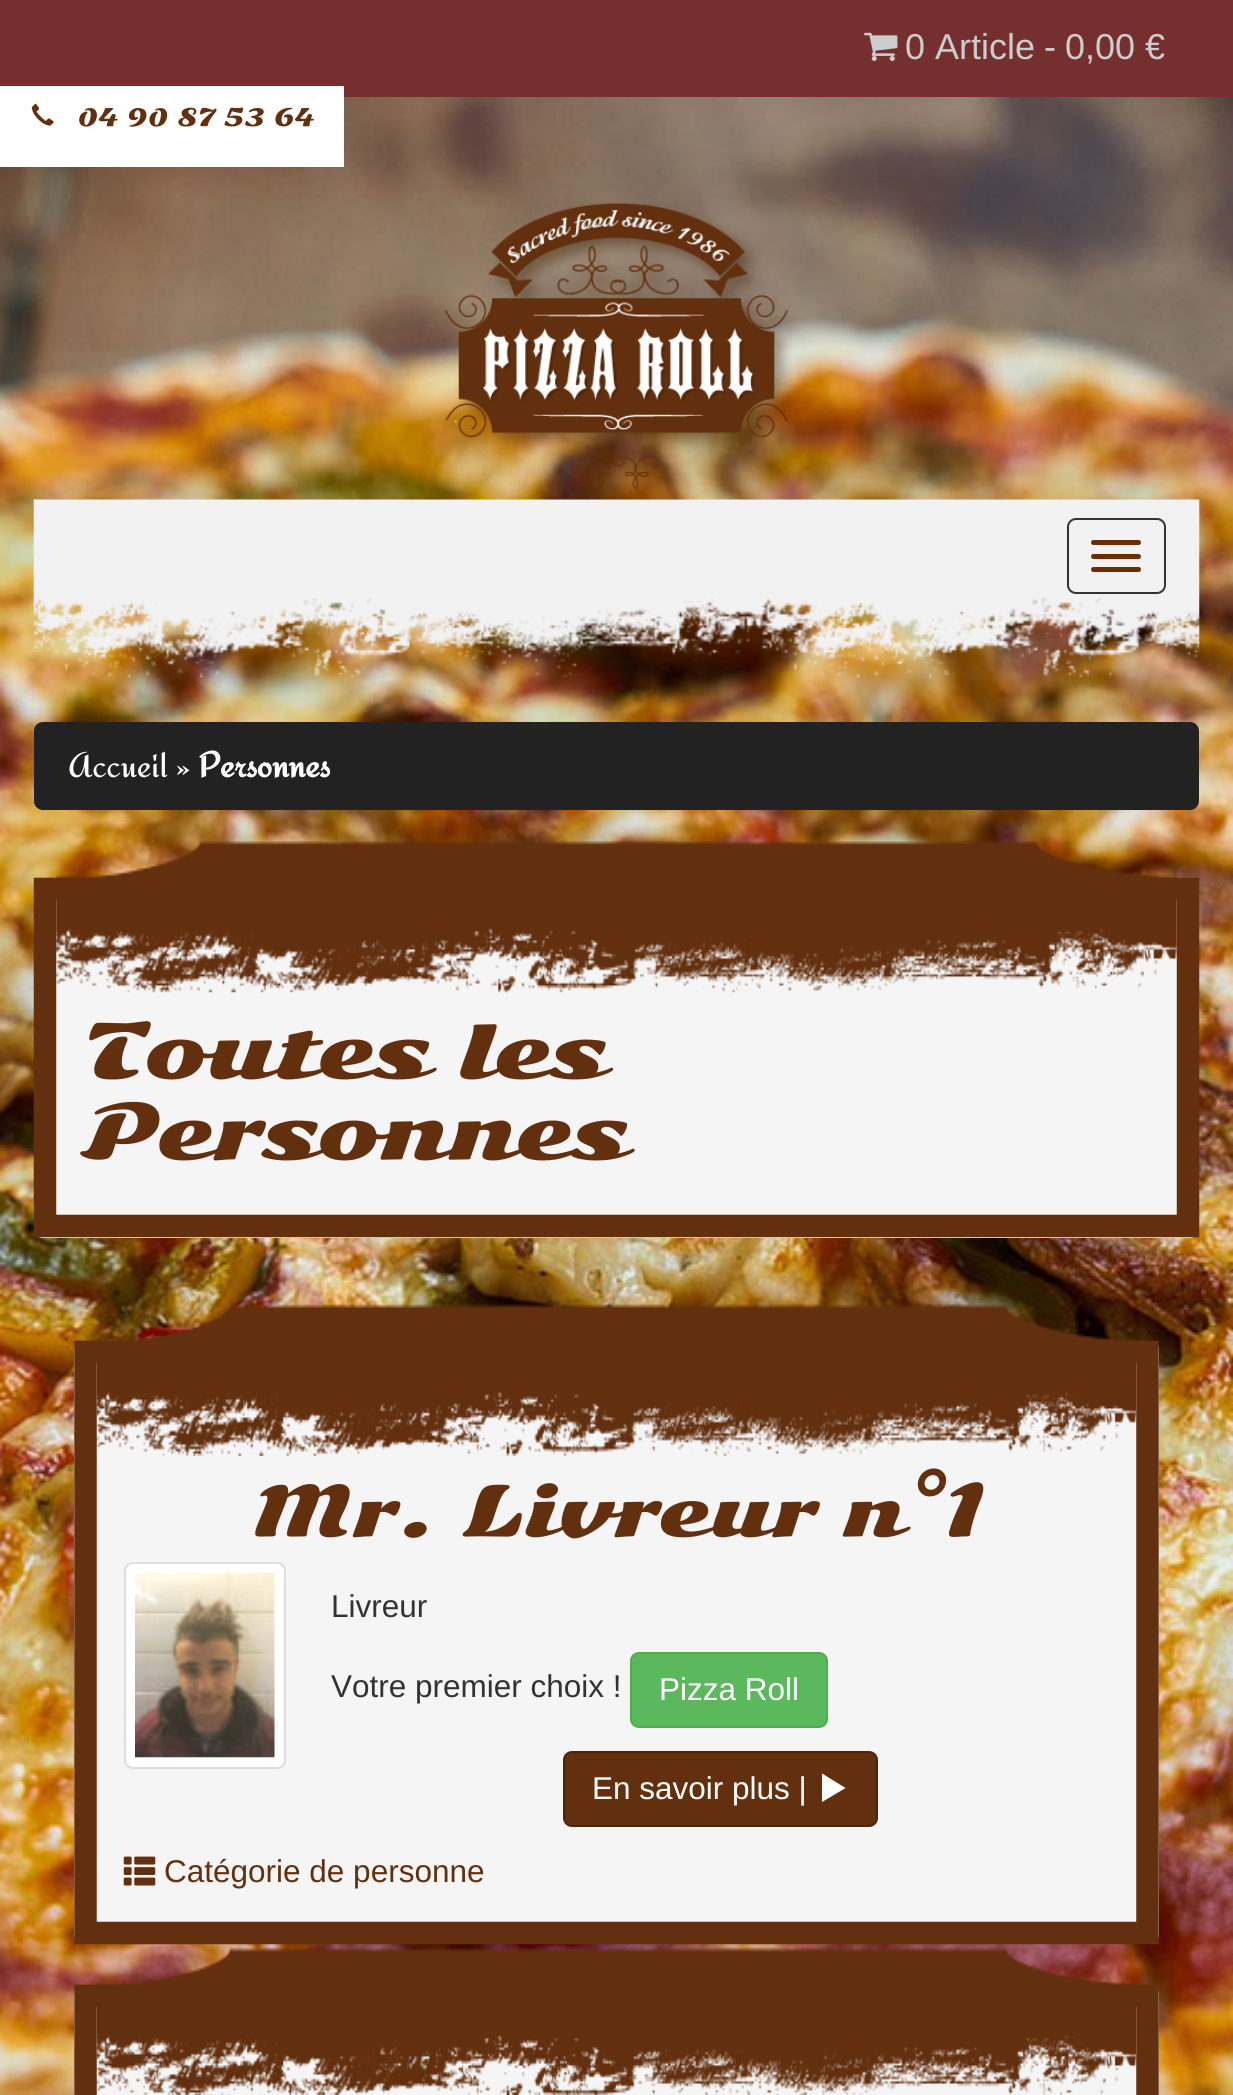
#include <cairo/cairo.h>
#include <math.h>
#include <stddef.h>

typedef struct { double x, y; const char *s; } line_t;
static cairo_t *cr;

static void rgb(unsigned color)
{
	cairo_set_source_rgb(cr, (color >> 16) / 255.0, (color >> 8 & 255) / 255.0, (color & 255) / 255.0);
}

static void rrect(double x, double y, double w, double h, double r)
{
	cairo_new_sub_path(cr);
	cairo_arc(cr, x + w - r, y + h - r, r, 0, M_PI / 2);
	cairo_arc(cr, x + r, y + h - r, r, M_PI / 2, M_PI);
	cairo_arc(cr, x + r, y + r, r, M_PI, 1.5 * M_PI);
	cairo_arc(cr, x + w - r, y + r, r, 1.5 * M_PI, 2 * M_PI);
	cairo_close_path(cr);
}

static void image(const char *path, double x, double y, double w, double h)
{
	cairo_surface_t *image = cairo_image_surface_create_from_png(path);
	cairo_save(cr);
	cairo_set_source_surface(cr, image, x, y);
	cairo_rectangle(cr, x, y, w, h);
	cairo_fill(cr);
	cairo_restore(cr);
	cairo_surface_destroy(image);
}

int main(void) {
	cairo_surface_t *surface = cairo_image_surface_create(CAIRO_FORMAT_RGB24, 1233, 2095);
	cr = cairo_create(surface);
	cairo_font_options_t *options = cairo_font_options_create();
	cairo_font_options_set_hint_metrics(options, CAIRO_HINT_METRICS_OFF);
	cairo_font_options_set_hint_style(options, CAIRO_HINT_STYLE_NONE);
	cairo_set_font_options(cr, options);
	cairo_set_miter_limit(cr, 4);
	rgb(0xffffff);
	cairo_paint(cr);
	image("img/1.png", 0, 97, 1233, 1998);
	rgb(0x752f2f);
	cairo_rectangle(cr, 0, 0, 1233, 97);
	cairo_fill(cr);
	image("img/2.png", 864, 32, 34, 29);
	rgb(0xffffff);
	cairo_rectangle(cr, 0, 86, 344, 81);
	cairo_fill(cr);
	image("img/3.png", 31, 103, 23, 23);
	image("img/4.png", 444, 203, 348, 290);
	image("img/5.png", 33, 499, 1167, 179);
	rrect(1068, 519, 97, 74, 8);
	rgb(0x333333);
	cairo_stroke(cr);
	rgb(0x6c2d01);
	rrect(1091, 540, 50, 5, 2.5);
	cairo_fill(cr);
	rrect(1091, 554, 50, 5, 2.5);
	cairo_fill(cr);
	rrect(1091, 567, 50, 5, 2.5);
	cairo_fill(cr);
	rgb(0x222222);
	rrect(34, 722, 1165, 88, 9);
	cairo_fill(cr);
	rgb(0xf5f5f5);
	rrect(34, 878, 1165, 360, 9);
	cairo_fill(cr);
	cairo_new_path(cr);
	cairo_move_to(cr, 45, 889);
	cairo_line_to(cr, 1188, 889);
	cairo_line_to(cr, 1188, 1226);
	cairo_line_to(cr, 45, 1226);
	cairo_close_path(cr);
	rgb(0x63300f);
	cairo_set_line_width(cr, 22.5);
	cairo_stroke(cr);
	image("img/6.png", 56, 841, 1121, 152);
	rgb(0xf5f5f5);
	rrect(74, 1341, 1085, 603, 9);
	cairo_fill(cr);
	cairo_new_path(cr);
	cairo_move_to(cr, 85.5, 1352);
	cairo_line_to(cr, 1147.5, 1352);
	cairo_line_to(cr, 1147.5, 1933);
	cairo_line_to(cr, 85.5, 1933);
	cairo_close_path(cr);
	rgb(0x63300f);
	cairo_stroke(cr);
	image("img/7.png", 96, 1304, 1041, 152);
	rgb(0xffffff);
	rrect(125, 1563, 160, 205, 8);
	cairo_fill_preserve(cr);
	rgb(0xdddddd);
	cairo_set_line_width(cr, 2);
	cairo_stroke(cr);
	image("img/8.png", 135, 1572, 140, 186);
	rgb(0x5cb85c);
	rrect(631, 1653, 196, 74, 8);
	cairo_fill_preserve(cr);
	rgb(0x4cae4c);
	cairo_stroke(cr);
	rgb(0x63300f);
	rrect(564, 1752, 313, 74, 8);
	cairo_fill_preserve(cr);
	rgb(0x4c240b);
	cairo_stroke(cr);
	rgb(0xffffff);
	cairo_new_path(cr);
	cairo_move_to(cr, 822, 1802);
	cairo_line_to(cr, 845.5, 1788);
	cairo_line_to(cr, 822, 1773.5);
	cairo_close_path(cr);
	cairo_fill(cr);
	image("img/9.png", 123, 1856, 33, 30);
	rgb(0xf5f5f5);
	rrect(74, 1985, 1085, 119, 9);
	cairo_fill(cr);
	cairo_new_path(cr);
	cairo_move_to(cr, 85.5, 1996);
	cairo_line_to(cr, 1147.5, 1996);
	cairo_line_to(cr, 1147.5, 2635);
	cairo_line_to(cr, 85.5, 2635);
	cairo_close_path(cr);
	rgb(0x63300f);
	cairo_set_line_width(cr, 22.5);
	cairo_stroke(cr);
	image("img/10.png", 96, 1948, 1041, 147);
	cairo_select_font_face(cr, "Liberation Sans", CAIRO_FONT_SLANT_NORMAL, CAIRO_FONT_WEIGHT_NORMAL);
	cairo_set_font_size(cr, 36);
	rgb(0xcccccc);
	{
		static const line_t items[] = {
			{905, 59, "0 Article"},
			{1044, 59, "-"},
			{1065, 59, "0,00 €"},
		};
		for (size_t i = 0; i < sizeof items / sizeof *items; i++) {
			cairo_move_to(cr, items[i].x, items[i].y);
			cairo_show_text(cr, items[i].s);
		}
	}
	cairo_select_font_face(cr, "Sonsie One", CAIRO_FONT_SLANT_NORMAL, CAIRO_FONT_WEIGHT_NORMAL);
	cairo_set_font_size(cr, 22.5);
	rgb(0x63300f);
	cairo_move_to(cr, 77, 126);
	cairo_show_text(cr, "04 90 87 53 64");
	cairo_select_font_face(cr, "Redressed", CAIRO_FONT_SLANT_NORMAL, CAIRO_FONT_WEIGHT_NORMAL);
	cairo_set_font_size(cr, 36);
	rgb(0xffffff);
	cairo_move_to(cr, 68, 777);
	cairo_show_text(cr, "Accueil »");
	cairo_select_font_face(cr, "Redressed", CAIRO_FONT_SLANT_NORMAL, CAIRO_FONT_WEIGHT_BOLD);
	cairo_move_to(cr, 198, 777);
	cairo_show_text(cr, "Personnes");
	cairo_select_font_face(cr, "Sonsie One", CAIRO_FONT_SLANT_NORMAL, CAIRO_FONT_WEIGHT_NORMAL);
	cairo_set_font_size(cr, 74.25);
	rgb(0x63300f);
	cairo_move_to(cr, 83, 1078);
	cairo_show_text(cr, "Toutes les");
	cairo_move_to(cr, 83, 1159);
	cairo_show_text(cr, "Personnes");
	cairo_set_font_size(cr, 67.5);
	cairo_move_to(cr, 251, 1536);
	cairo_show_text(cr, "Mr. Livreur n°1");
	cairo_select_font_face(cr, "Liberation Sans", CAIRO_FONT_SLANT_NORMAL, CAIRO_FONT_WEIGHT_NORMAL);
	cairo_set_font_size(cr, 31.5);
	rgb(0x333333);
	cairo_move_to(cr, 331, 1617);
	cairo_show_text(cr, "Livreur");
	cairo_move_to(cr, 331, 1697);
	cairo_show_text(cr, "Votre premier choix !");
	rgb(0xffffff);
	cairo_move_to(cr, 659, 1700);
	cairo_show_text(cr, "Pizza Roll");
	cairo_move_to(cr, 592, 1799);
	cairo_show_text(cr, "En savoir plus |");
	rgb(0x63300f);
	cairo_move_to(cr, 164, 1882);
	cairo_show_text(cr, "Catégorie de personne");
	cairo_surface_write_to_png(surface, "page.png");
	cairo_font_options_destroy(options);
	cairo_destroy(cr);
	cairo_surface_destroy(surface);
	return 0;
}
